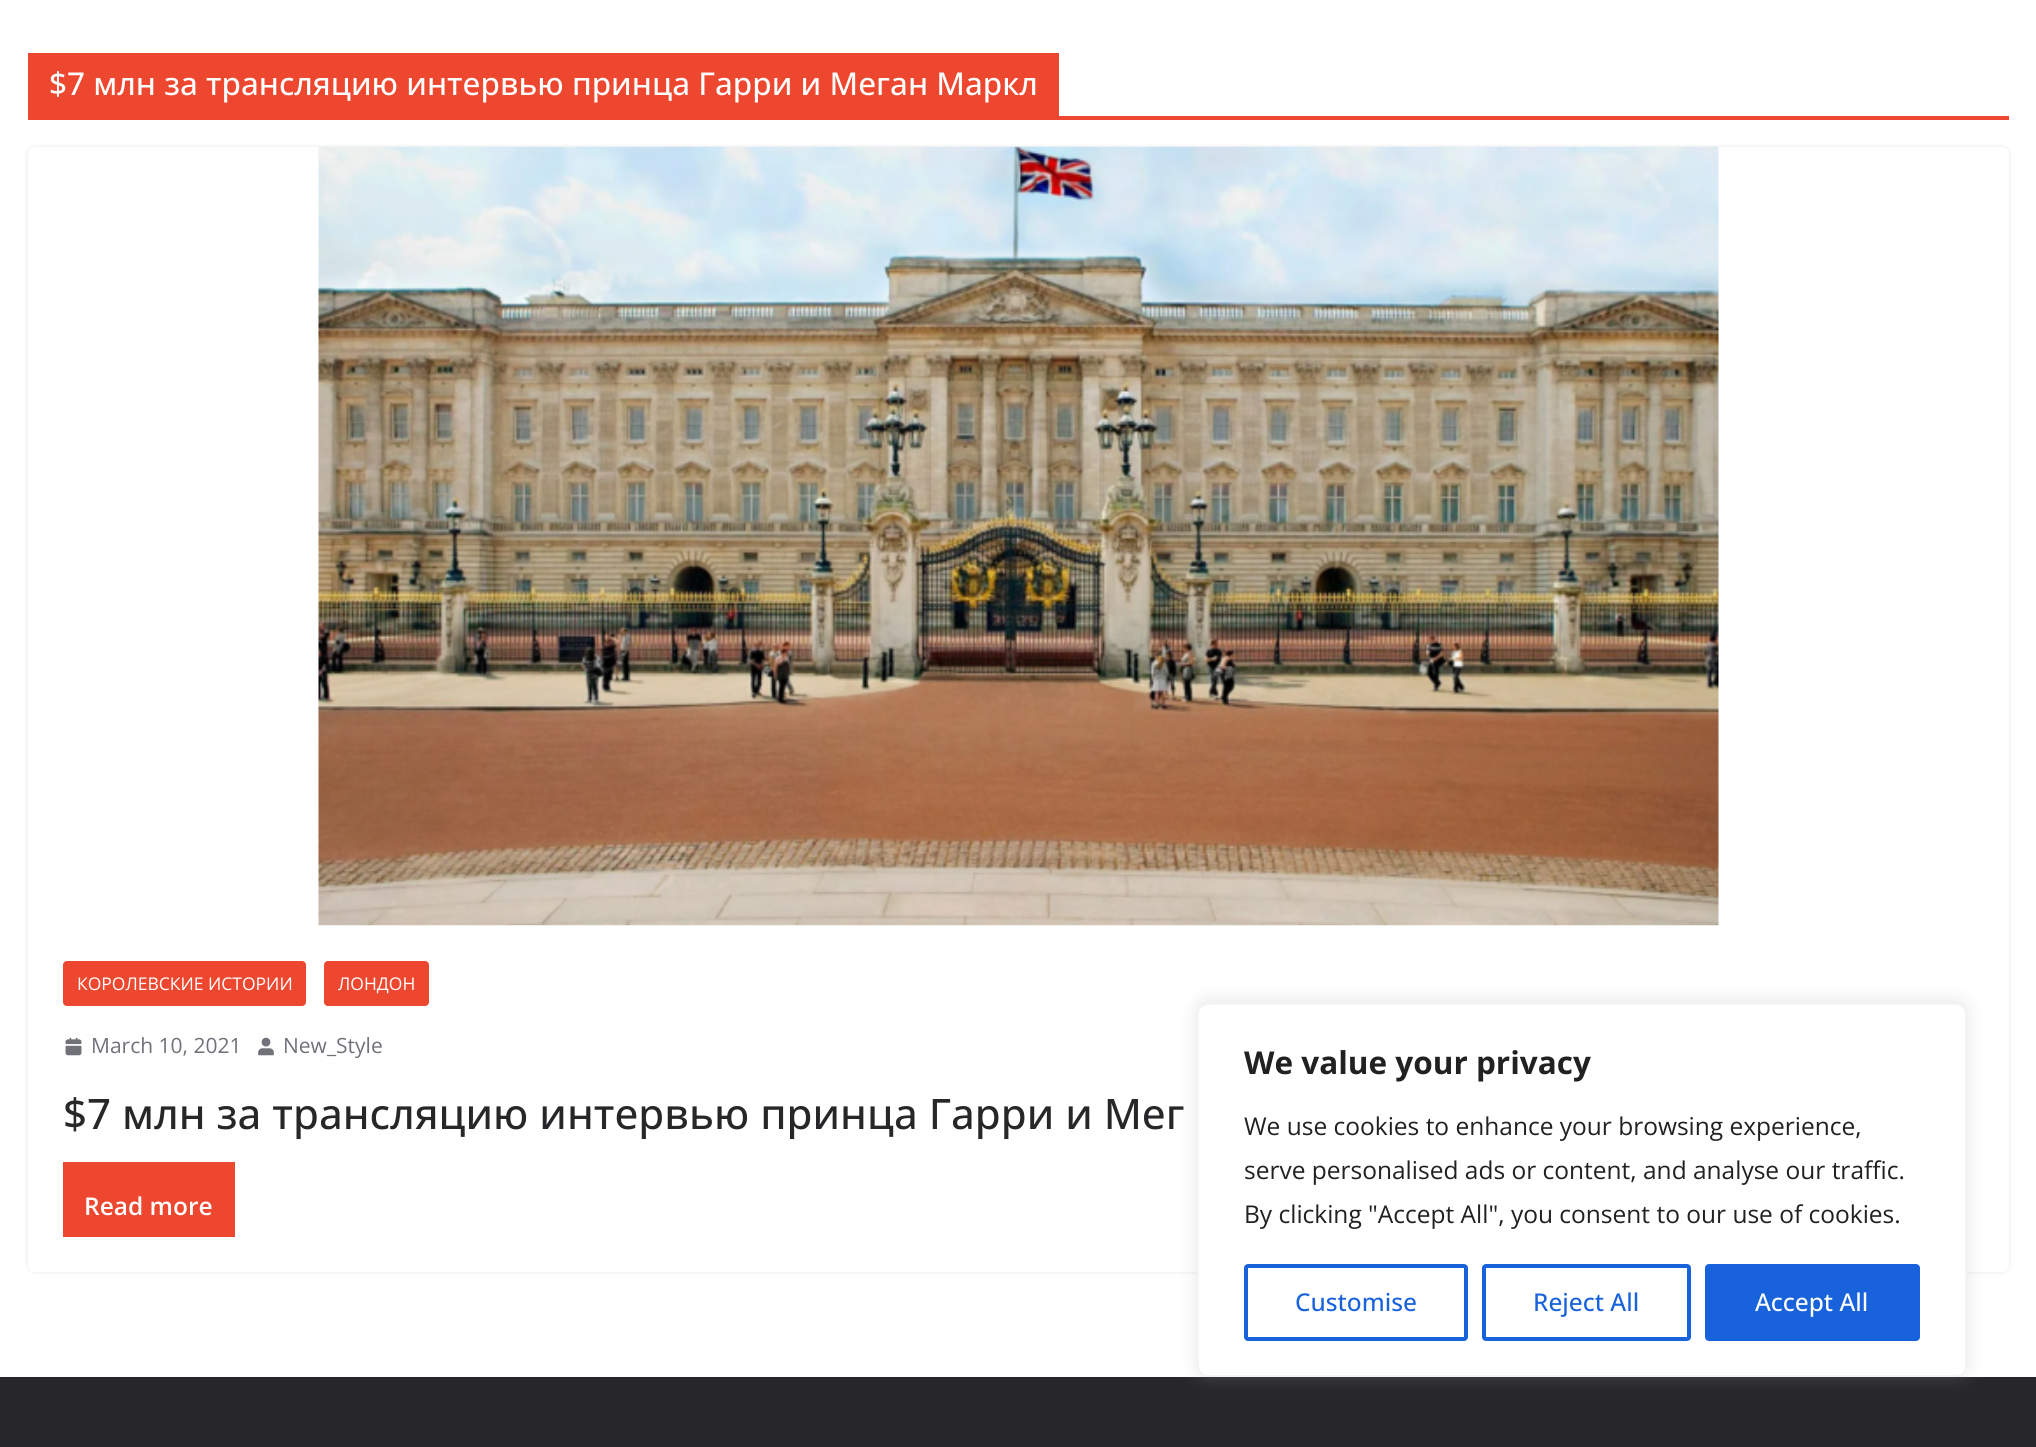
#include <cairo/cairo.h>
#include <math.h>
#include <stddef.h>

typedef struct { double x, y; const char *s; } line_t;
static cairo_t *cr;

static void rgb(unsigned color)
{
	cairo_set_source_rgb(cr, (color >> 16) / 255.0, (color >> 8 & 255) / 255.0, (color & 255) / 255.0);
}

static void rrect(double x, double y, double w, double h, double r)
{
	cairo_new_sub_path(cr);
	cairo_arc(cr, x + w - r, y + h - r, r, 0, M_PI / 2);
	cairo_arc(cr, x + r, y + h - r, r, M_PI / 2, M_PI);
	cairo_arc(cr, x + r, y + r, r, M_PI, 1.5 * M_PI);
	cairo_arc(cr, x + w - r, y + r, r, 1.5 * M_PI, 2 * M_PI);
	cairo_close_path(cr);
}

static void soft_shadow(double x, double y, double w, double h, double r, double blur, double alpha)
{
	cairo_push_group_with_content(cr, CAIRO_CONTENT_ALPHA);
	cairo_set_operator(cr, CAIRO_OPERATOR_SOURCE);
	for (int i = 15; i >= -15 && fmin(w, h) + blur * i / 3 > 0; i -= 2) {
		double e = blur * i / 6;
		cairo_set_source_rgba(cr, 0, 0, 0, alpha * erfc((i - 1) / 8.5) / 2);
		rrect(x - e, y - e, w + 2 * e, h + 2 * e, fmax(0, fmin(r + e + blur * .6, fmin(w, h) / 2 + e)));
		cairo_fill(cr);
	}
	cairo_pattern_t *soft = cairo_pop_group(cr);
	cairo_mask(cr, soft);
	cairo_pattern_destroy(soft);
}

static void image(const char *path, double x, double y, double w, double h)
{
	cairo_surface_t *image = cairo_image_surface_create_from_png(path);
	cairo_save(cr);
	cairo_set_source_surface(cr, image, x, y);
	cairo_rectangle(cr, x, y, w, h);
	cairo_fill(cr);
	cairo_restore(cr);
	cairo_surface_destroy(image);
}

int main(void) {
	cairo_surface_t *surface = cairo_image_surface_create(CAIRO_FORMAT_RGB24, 2036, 1447);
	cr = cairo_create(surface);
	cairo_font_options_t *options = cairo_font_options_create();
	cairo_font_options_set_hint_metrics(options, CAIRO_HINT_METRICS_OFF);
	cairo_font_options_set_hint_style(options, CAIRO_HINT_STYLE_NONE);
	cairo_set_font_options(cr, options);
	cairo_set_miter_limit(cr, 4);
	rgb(0xffffff);
	cairo_paint(cr);
	rgb(0xed482f);
	cairo_rectangle(cr, 28, 116, 1981, 4);
	cairo_fill(cr);
	cairo_rectangle(cr, 28, 53, 1031, 63);
	cairo_fill(cr);
	cairo_save(cr);
	cairo_set_fill_rule(cr, CAIRO_FILL_RULE_EVEN_ODD);
	cairo_new_path(cr);
	cairo_move_to(cr, 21, 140);
	cairo_line_to(cr, 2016, 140);
	cairo_line_to(cr, 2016, 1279);
	cairo_line_to(cr, 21, 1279);
	cairo_close_path(cr);
	cairo_move_to(cr, 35, 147);
	cairo_line_to(cr, 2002, 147);
	cairo_curve_to(cr, 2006, 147, 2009, 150, 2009, 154);
	cairo_line_to(cr, 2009, 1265);
	cairo_curve_to(cr, 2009, 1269, 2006, 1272, 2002, 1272);
	cairo_line_to(cr, 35, 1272);
	cairo_curve_to(cr, 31, 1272, 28, 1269, 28, 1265);
	cairo_line_to(cr, 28, 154);
	cairo_curve_to(cr, 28, 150, 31, 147, 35, 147);
	cairo_close_path(cr);
	cairo_clip(cr);
	rgb(0xe4e4e7);
	soft_shadow(28, 147, 1981, 1125, 7, 2, 1);
	cairo_restore(cr);
	image("img/1.png", 318, 146, 1401, 780);
	rrect(63, 961, 243, 45, 4);
	cairo_fill(cr);
	rrect(324, 961, 105, 45, 4);
	cairo_fill(cr);
	image("img/2.png", 65, 1037, 17, 19);
	image("img/3.png", 258, 1037, 16, 19);
	cairo_rectangle(cr, 63, 1162, 172, 75);
	cairo_fill(cr);
	rgb(0x27272a);
	cairo_rectangle(cr, 0, 1377, 2036, 70);
	cairo_fill(cr);
	rgb(0xacabab);
	soft_shadow(1197, 1001, 770, 375, 11, 9, 0.3);
	rgb(0xffffff);
	rrect(1198, 1004, 768, 372, 10);
	cairo_fill_preserve(cr);
	rgb(0xf4f4f4);
	cairo_stroke(cr);
	rrect(1246, 1266, 220, 73, 2);
	rgb(0x1863dc);
	cairo_set_line_width(cr, 4);
	cairo_stroke(cr);
	rrect(1484, 1266, 205, 73, 2);
	cairo_stroke(cr);
	rrect(1707, 1266, 211, 73, 2);
	cairo_fill_preserve(cr);
	cairo_stroke(cr);
	cairo_select_font_face(cr, "Open Sans Medium", CAIRO_FONT_SLANT_NORMAL, CAIRO_FONT_WEIGHT_NORMAL);
	cairo_set_font_size(cr, 31.5);
	rgb(0xffffff);
	cairo_move_to(cr, 49, 95);
	cairo_show_text(cr, "$7 млн за трансляцию интервью принца Гарри и Меган Маркл");
	cairo_select_font_face(cr, "Open Sans", CAIRO_FONT_SLANT_NORMAL, CAIRO_FONT_WEIGHT_NORMAL);
	cairo_set_font_size(cr, 17.5);
	cairo_move_to(cr, 77, 990);
	cairo_show_text(cr, "КОРОЛЕВСКИЕ ИСТОРИИ");
	cairo_move_to(cr, 338, 990);
	cairo_show_text(cr, "ЛОНДОН");
	cairo_set_font_size(cr, 21);
	rgb(0x71717a);
	cairo_move_to(cr, 91, 1053);
	cairo_show_text(cr, "March 10, 2021");
	cairo_move_to(cr, 283, 1053);
	cairo_show_text(cr, "New_Style");
	cairo_select_font_face(cr, "Open Sans Medium", CAIRO_FONT_SLANT_NORMAL, CAIRO_FONT_WEIGHT_NORMAL);
	cairo_set_font_size(cr, 42);
	rgb(0x27272a);
	cairo_move_to(cr, 63, 1129);
	cairo_show_text(cr, "$7 млн за трансляцию интервью принца Гарри и Мег");
	cairo_select_font_face(cr, "Open Sans SemiBold", CAIRO_FONT_SLANT_NORMAL, CAIRO_FONT_WEIGHT_NORMAL);
	cairo_set_font_size(cr, 24.5);
	rgb(0xffffff);
	cairo_move_to(cr, 84, 1215);
	cairo_show_text(cr, "Read more");
	cairo_select_font_face(cr, "Open Sans", CAIRO_FONT_SLANT_NORMAL, CAIRO_FONT_WEIGHT_BOLD);
	cairo_set_font_size(cr, 31.5);
	rgb(0x212121);
	cairo_move_to(cr, 1244, 1074);
	cairo_show_text(cr, "We value your privacy");
	cairo_select_font_face(cr, "Open Sans", CAIRO_FONT_SLANT_NORMAL, CAIRO_FONT_WEIGHT_NORMAL);
	cairo_set_font_size(cr, 24.5);
	{
		static const line_t items[] = {
			{1244, 1135, "We use cookies to enhance your browsing experience,"},
			{1244, 1179, "serve personalised ads or content, and analyse our traffic."},
			{1244, 1223, "By clicking \"Accept All\", you consent to our use of cookies."},
		};
		for (size_t i = 0; i < sizeof items / sizeof *items; i++) {
			cairo_move_to(cr, items[i].x, items[i].y);
			cairo_show_text(cr, items[i].s);
		}
	}
	cairo_select_font_face(cr, "Open Sans Medium", CAIRO_FONT_SLANT_NORMAL, CAIRO_FONT_WEIGHT_NORMAL);
	rgb(0x1863dc);
	cairo_move_to(cr, 1295, 1311);
	cairo_show_text(cr, "Customise");
	cairo_move_to(cr, 1533, 1311);
	cairo_show_text(cr, "Reject All");
	rgb(0xffffff);
	cairo_move_to(cr, 1755, 1311);
	cairo_show_text(cr, "Accept All");
	cairo_surface_write_to_png(surface, "page.png");
	cairo_font_options_destroy(options);
	cairo_destroy(cr);
	cairo_surface_destroy(surface);
	return 0;
}
